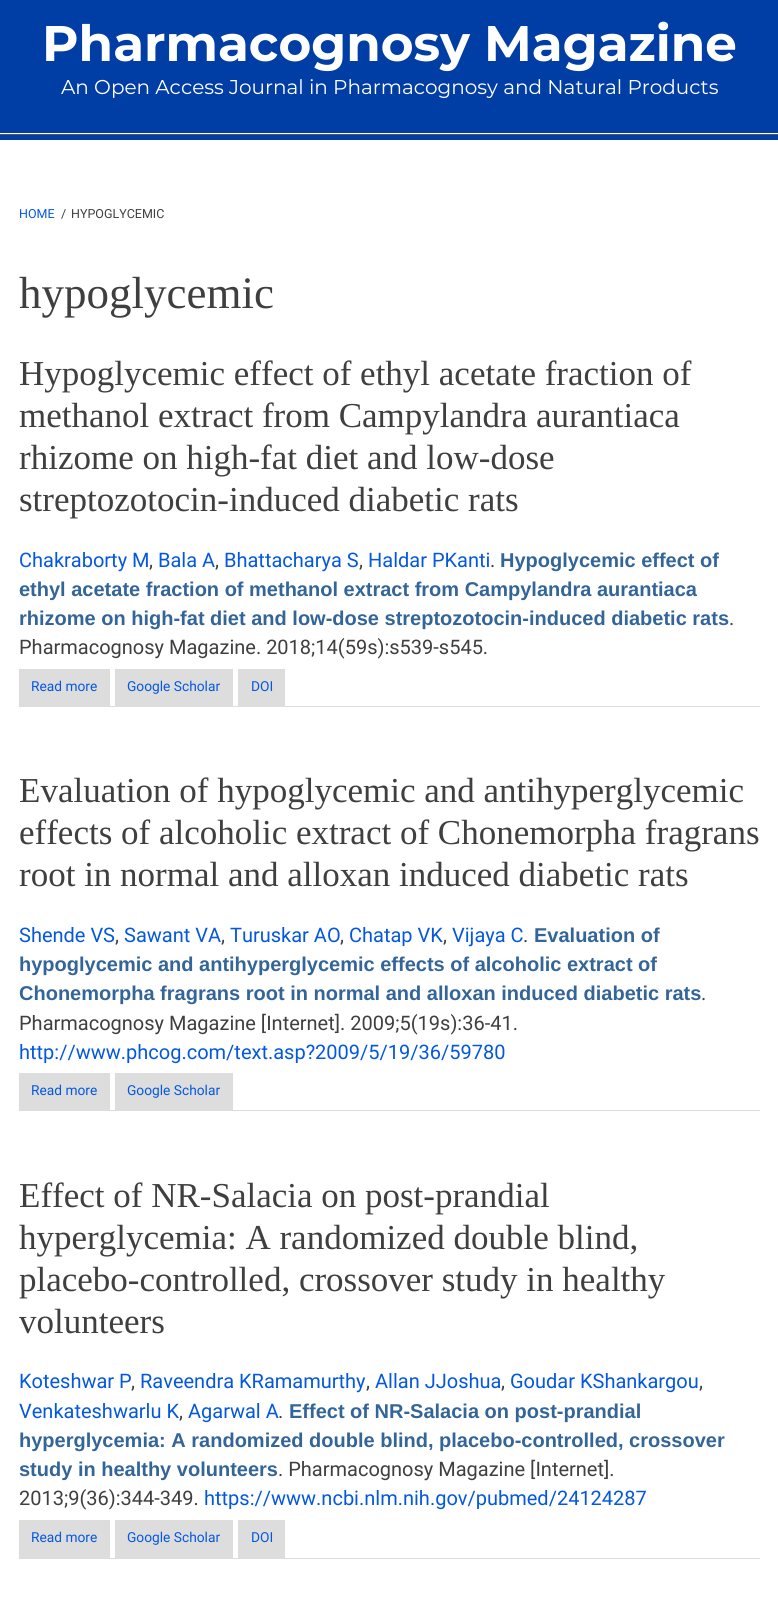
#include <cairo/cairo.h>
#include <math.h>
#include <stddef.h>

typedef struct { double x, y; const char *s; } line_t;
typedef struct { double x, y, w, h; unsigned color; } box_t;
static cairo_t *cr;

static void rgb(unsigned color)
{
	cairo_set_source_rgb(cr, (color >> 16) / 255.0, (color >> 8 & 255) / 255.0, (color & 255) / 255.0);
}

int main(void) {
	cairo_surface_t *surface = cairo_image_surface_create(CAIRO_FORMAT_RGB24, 778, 1605);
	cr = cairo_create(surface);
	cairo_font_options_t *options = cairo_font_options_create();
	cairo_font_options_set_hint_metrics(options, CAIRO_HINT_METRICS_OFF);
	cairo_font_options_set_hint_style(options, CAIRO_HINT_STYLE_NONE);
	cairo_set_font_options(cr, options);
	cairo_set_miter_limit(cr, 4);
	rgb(0x003da5);
	cairo_paint(cr);
	{
		static const box_t items[] = {
			{0, 133, 778, 1, 0xffffff},
			{0, 134, 778, 1, 0x555555},
			{0, 140, 778, 1465, 0xffffff},
			{19, 706, 741, 1, 0xdddddd},
			{19, 669, 91, 37, 0xdddddd},
			{115, 669, 118, 37, 0xdddddd},
			{238, 669, 47, 37, 0xdddddd},
			{19, 1110, 741, 1, 0xdddddd},
			{19, 1073, 91, 37, 0xdddddd},
			{115, 1073, 118, 37, 0xdddddd},
			{19, 1558, 741, 1, 0xdddddd},
			{19, 1520, 91, 38, 0xdddddd},
			{115, 1520, 118, 38, 0xdddddd},
			{238, 1520, 47, 38, 0xdddddd},
		};
		for (size_t i = 0; i < sizeof items / sizeof *items; i++) {
			rgb(items[i].color);
			cairo_rectangle(cr, items[i].x, items[i].y, items[i].w, items[i].h);
			cairo_fill(cr);
		}
	}
	cairo_select_font_face(cr, "Montserrat", CAIRO_FONT_SLANT_NORMAL, CAIRO_FONT_WEIGHT_BOLD);
	cairo_set_font_size(cr, 50);
	rgb(0xffffff);
	cairo_move_to(cr, 42, 61);
	cairo_show_text(cr, "Pharmacognosy Magazine");
	cairo_select_font_face(cr, "Montserrat", CAIRO_FONT_SLANT_NORMAL, CAIRO_FONT_WEIGHT_NORMAL);
	cairo_set_font_size(cr, 20);
	cairo_move_to(cr, 61, 94);
	cairo_show_text(cr, "An Open Access Journal in Pharmacognosy and Natural Products");
	cairo_select_font_face(cr, "Roboto", CAIRO_FONT_SLANT_NORMAL, CAIRO_FONT_WEIGHT_NORMAL);
	cairo_set_font_size(cr, 12.5);
	rgb(0x0458e0);
	cairo_move_to(cr, 19, 218);
	cairo_show_text(cr, "HOME");
	rgb(0x3f3f3f);
	cairo_move_to(cr, 61, 218);
	cairo_show_text(cr, "/");
	cairo_move_to(cr, 71, 218);
	cairo_show_text(cr, "HYPOGLYCEMIC");
	cairo_select_font_face(cr, "Liberation Serif", CAIRO_FONT_SLANT_NORMAL, CAIRO_FONT_WEIGHT_NORMAL);
	cairo_set_font_size(cr, 45);
	cairo_move_to(cr, 19, 308);
	cairo_show_text(cr, "hypoglycemic");
	cairo_set_font_size(cr, 35);
	{
		static const line_t items[] = {
			{19, 385, "Hypoglycemic effect of ethyl acetate fraction of"},
			{19, 427, "methanol extract from Campylandra aurantiaca"},
			{19, 469, "rhizome on high-fat diet and low-dose"},
			{19, 511, "streptozotocin-induced diabetic rats"},
		};
		for (size_t i = 0; i < sizeof items / sizeof *items; i++) {
			cairo_move_to(cr, items[i].x, items[i].y);
			cairo_show_text(cr, items[i].s);
		}
	}
	cairo_select_font_face(cr, "Roboto", CAIRO_FONT_SLANT_NORMAL, CAIRO_FONT_WEIGHT_NORMAL);
	cairo_set_font_size(cr, 20);
	rgb(0x0458e0);
	cairo_move_to(cr, 19, 567);
	cairo_show_text(cr, "Chakraborty M");
	rgb(0x3f3f3f);
	cairo_move_to(cr, 149, 567);
	cairo_show_text(cr, ",");
	rgb(0x0458e0);
	cairo_move_to(cr, 158, 567);
	cairo_show_text(cr, "Bala A");
	rgb(0x3f3f3f);
	cairo_move_to(cr, 215, 567);
	cairo_show_text(cr, ",");
	rgb(0x0458e0);
	cairo_move_to(cr, 224, 567);
	cairo_show_text(cr, "Bhattacharya S");
	rgb(0x3f3f3f);
	cairo_move_to(cr, 359, 567);
	cairo_show_text(cr, ",");
	rgb(0x0458e0);
	cairo_move_to(cr, 368, 567);
	cairo_show_text(cr, "Haldar PKanti");
	rgb(0x3f3f3f);
	cairo_move_to(cr, 490, 567);
	cairo_show_text(cr, ".");
	cairo_select_font_face(cr, "Liberation Sans", CAIRO_FONT_SLANT_NORMAL, CAIRO_FONT_WEIGHT_BOLD);
	rgb(0x336599);
	{
		static const line_t items[] = {
			{500, 567, "Hypoglycemic effect of"},
			{19, 596, "ethyl acetate fraction of methanol extract from Campylandra aurantiaca"},
			{19, 625, "rhizome on high-fat diet and low-dose streptozotocin-induced diabetic rats"},
		};
		for (size_t i = 0; i < sizeof items / sizeof *items; i++) {
			cairo_move_to(cr, items[i].x, items[i].y);
			cairo_show_text(cr, items[i].s);
		}
	}
	cairo_select_font_face(cr, "Roboto", CAIRO_FONT_SLANT_NORMAL, CAIRO_FONT_WEIGHT_NORMAL);
	rgb(0x3f3f3f);
	cairo_move_to(cr, 729, 625);
	cairo_show_text(cr, ".");
	cairo_move_to(cr, 19, 654);
	cairo_show_text(cr, "Pharmacognosy Magazine. 2018;14(59s):s539-s545.");
	cairo_set_font_size(cr, 13.75);
	rgb(0x0458e0);
	{
		static const line_t items[] = {
			{31, 691, "Read more"},
			{127, 691, "Google Scholar"},
			{251, 691, "DOI"},
		};
		for (size_t i = 0; i < sizeof items / sizeof *items; i++) {
			cairo_move_to(cr, items[i].x, items[i].y);
			cairo_show_text(cr, items[i].s);
		}
	}
	cairo_select_font_face(cr, "Liberation Serif", CAIRO_FONT_SLANT_NORMAL, CAIRO_FONT_WEIGHT_NORMAL);
	cairo_set_font_size(cr, 35);
	rgb(0x3f3f3f);
	{
		static const line_t items[] = {
			{19, 802, "Evaluation of hypoglycemic and antihyperglycemic"},
			{19, 844, "effects of alcoholic extract of Chonemorpha fragrans"},
			{19, 886, "root in normal and alloxan induced diabetic rats"},
		};
		for (size_t i = 0; i < sizeof items / sizeof *items; i++) {
			cairo_move_to(cr, items[i].x, items[i].y);
			cairo_show_text(cr, items[i].s);
		}
	}
	cairo_select_font_face(cr, "Roboto", CAIRO_FONT_SLANT_NORMAL, CAIRO_FONT_WEIGHT_NORMAL);
	cairo_set_font_size(cr, 20);
	rgb(0x0458e0);
	cairo_move_to(cr, 19, 942);
	cairo_show_text(cr, "Shende VS");
	rgb(0x3f3f3f);
	cairo_move_to(cr, 115, 942);
	cairo_show_text(cr, ",");
	rgb(0x0458e0);
	cairo_move_to(cr, 124, 942);
	cairo_show_text(cr, "Sawant VA");
	rgb(0x3f3f3f);
	cairo_move_to(cr, 221, 942);
	cairo_show_text(cr, ",");
	rgb(0x0458e0);
	cairo_move_to(cr, 230, 942);
	cairo_show_text(cr, "Turuskar AO");
	rgb(0x3f3f3f);
	cairo_move_to(cr, 340, 942);
	cairo_show_text(cr, ",");
	rgb(0x0458e0);
	cairo_move_to(cr, 349, 942);
	cairo_show_text(cr, "Chatap VK");
	rgb(0x3f3f3f);
	cairo_move_to(cr, 443, 942);
	cairo_show_text(cr, ",");
	rgb(0x0458e0);
	cairo_move_to(cr, 452, 942);
	cairo_show_text(cr, "Vijaya C");
	rgb(0x3f3f3f);
	cairo_move_to(cr, 523, 942);
	cairo_show_text(cr, ".");
	cairo_select_font_face(cr, "Liberation Sans", CAIRO_FONT_SLANT_NORMAL, CAIRO_FONT_WEIGHT_BOLD);
	rgb(0x336599);
	{
		static const line_t items[] = {
			{534, 942, "Evaluation of"},
			{19, 971, "hypoglycemic and antihyperglycemic effects of alcoholic extract of"},
			{19, 1000, "Chonemorpha fragrans root in normal and alloxan induced diabetic rats"},
		};
		for (size_t i = 0; i < sizeof items / sizeof *items; i++) {
			cairo_move_to(cr, items[i].x, items[i].y);
			cairo_show_text(cr, items[i].s);
		}
	}
	cairo_select_font_face(cr, "Roboto", CAIRO_FONT_SLANT_NORMAL, CAIRO_FONT_WEIGHT_NORMAL);
	rgb(0x3f3f3f);
	cairo_move_to(cr, 701, 1000);
	cairo_show_text(cr, ".");
	cairo_move_to(cr, 19, 1030);
	cairo_show_text(cr, "Pharmacognosy Magazine [Internet]. 2009;5(19s):36-41.");
	rgb(0x0458e0);
	cairo_move_to(cr, 19, 1059);
	cairo_show_text(cr, "http://www.phcog.com/text.asp?2009/5/19/36/59780");
	cairo_set_font_size(cr, 13.75);
	cairo_move_to(cr, 31, 1095);
	cairo_show_text(cr, "Read more");
	cairo_move_to(cr, 127, 1095);
	cairo_show_text(cr, "Google Scholar");
	cairo_select_font_face(cr, "Liberation Serif", CAIRO_FONT_SLANT_NORMAL, CAIRO_FONT_WEIGHT_NORMAL);
	cairo_set_font_size(cr, 35);
	rgb(0x3f3f3f);
	{
		static const line_t items[] = {
			{19, 1207, "Effect of NR-Salacia on post-prandial"},
			{19, 1249, "hyperglycemia: A randomized double blind,"},
			{19, 1291, "placebo-controlled, crossover study in healthy"},
			{19, 1333, "volunteers"},
		};
		for (size_t i = 0; i < sizeof items / sizeof *items; i++) {
			cairo_move_to(cr, items[i].x, items[i].y);
			cairo_show_text(cr, items[i].s);
		}
	}
	cairo_select_font_face(cr, "Roboto", CAIRO_FONT_SLANT_NORMAL, CAIRO_FONT_WEIGHT_NORMAL);
	cairo_set_font_size(cr, 20);
	rgb(0x0458e0);
	cairo_move_to(cr, 19, 1388);
	cairo_show_text(cr, "Koteshwar P");
	rgb(0x3f3f3f);
	cairo_move_to(cr, 131, 1388);
	cairo_show_text(cr, ",");
	rgb(0x0458e0);
	cairo_move_to(cr, 140, 1388);
	cairo_show_text(cr, "Raveendra KRamamurthy");
	rgb(0x3f3f3f);
	cairo_move_to(cr, 366, 1388);
	cairo_show_text(cr, ",");
	rgb(0x0458e0);
	cairo_move_to(cr, 375, 1388);
	cairo_show_text(cr, "Allan JJoshua");
	rgb(0x3f3f3f);
	cairo_move_to(cr, 501, 1388);
	cairo_show_text(cr, ",");
	rgb(0x0458e0);
	cairo_move_to(cr, 510, 1388);
	cairo_show_text(cr, "Goudar KShankargou");
	rgb(0x3f3f3f);
	cairo_move_to(cr, 699, 1388);
	cairo_show_text(cr, ",");
	rgb(0x0458e0);
	cairo_move_to(cr, 19, 1418);
	cairo_show_text(cr, "Venkateshwarlu K");
	rgb(0x3f3f3f);
	cairo_move_to(cr, 179, 1418);
	cairo_show_text(cr, ",");
	rgb(0x0458e0);
	cairo_move_to(cr, 188, 1418);
	cairo_show_text(cr, "Agarwal A");
	rgb(0x3f3f3f);
	cairo_move_to(cr, 278, 1418);
	cairo_show_text(cr, ".");
	cairo_select_font_face(cr, "Liberation Sans", CAIRO_FONT_SLANT_NORMAL, CAIRO_FONT_WEIGHT_BOLD);
	rgb(0x336599);
	{
		static const line_t items[] = {
			{289, 1418, "Effect of NR-Salacia on post-prandial"},
			{19, 1447, "hyperglycemia: A randomized double blind, placebo-controlled, crossover"},
			{19, 1476, "study in healthy volunteers"},
		};
		for (size_t i = 0; i < sizeof items / sizeof *items; i++) {
			cairo_move_to(cr, items[i].x, items[i].y);
			cairo_show_text(cr, items[i].s);
		}
	}
	cairo_select_font_face(cr, "Roboto", CAIRO_FONT_SLANT_NORMAL, CAIRO_FONT_WEIGHT_NORMAL);
	rgb(0x3f3f3f);
	cairo_move_to(cr, 278, 1476);
	cairo_show_text(cr, ". Pharmacognosy Magazine [Internet].");
	cairo_move_to(cr, 19, 1505);
	cairo_show_text(cr, "2013;9(36):344-349.");
	rgb(0x0458e0);
	cairo_move_to(cr, 204, 1505);
	cairo_show_text(cr, "https://www.ncbi.nlm.nih.gov/pubmed/24124287");
	cairo_set_font_size(cr, 13.75);
	{
		static const line_t items[] = {
			{31, 1542, "Read more"},
			{127, 1542, "Google Scholar"},
			{251, 1542, "DOI"},
		};
		for (size_t i = 0; i < sizeof items / sizeof *items; i++) {
			cairo_move_to(cr, items[i].x, items[i].y);
			cairo_show_text(cr, items[i].s);
		}
	}
	cairo_surface_write_to_png(surface, "page.png");
	cairo_font_options_destroy(options);
	cairo_destroy(cr);
	cairo_surface_destroy(surface);
	return 0;
}
